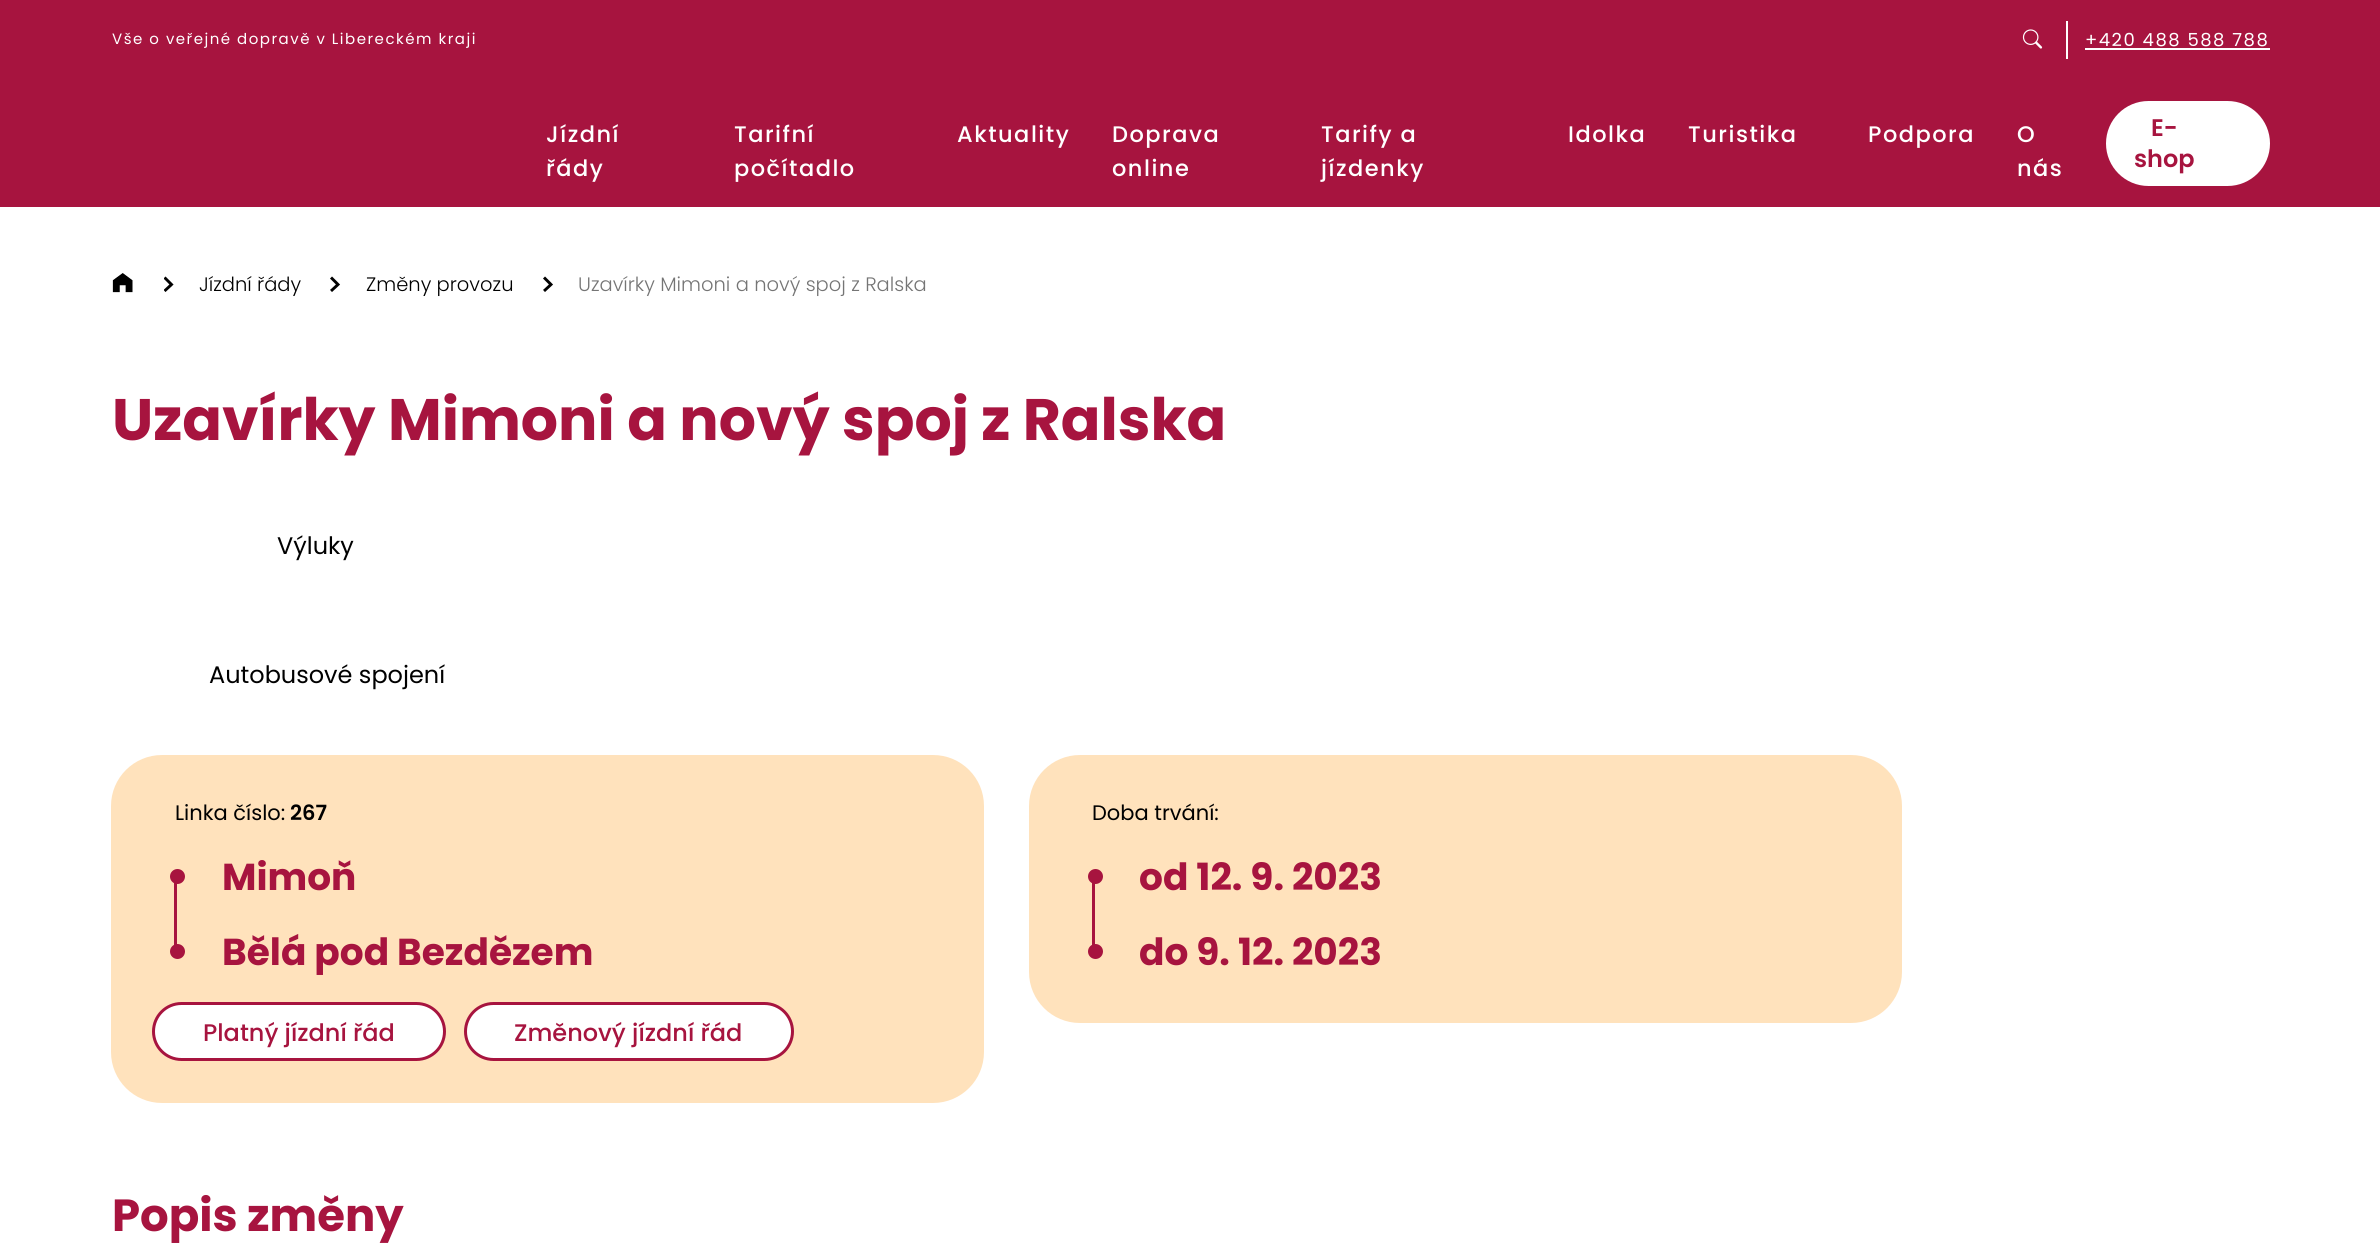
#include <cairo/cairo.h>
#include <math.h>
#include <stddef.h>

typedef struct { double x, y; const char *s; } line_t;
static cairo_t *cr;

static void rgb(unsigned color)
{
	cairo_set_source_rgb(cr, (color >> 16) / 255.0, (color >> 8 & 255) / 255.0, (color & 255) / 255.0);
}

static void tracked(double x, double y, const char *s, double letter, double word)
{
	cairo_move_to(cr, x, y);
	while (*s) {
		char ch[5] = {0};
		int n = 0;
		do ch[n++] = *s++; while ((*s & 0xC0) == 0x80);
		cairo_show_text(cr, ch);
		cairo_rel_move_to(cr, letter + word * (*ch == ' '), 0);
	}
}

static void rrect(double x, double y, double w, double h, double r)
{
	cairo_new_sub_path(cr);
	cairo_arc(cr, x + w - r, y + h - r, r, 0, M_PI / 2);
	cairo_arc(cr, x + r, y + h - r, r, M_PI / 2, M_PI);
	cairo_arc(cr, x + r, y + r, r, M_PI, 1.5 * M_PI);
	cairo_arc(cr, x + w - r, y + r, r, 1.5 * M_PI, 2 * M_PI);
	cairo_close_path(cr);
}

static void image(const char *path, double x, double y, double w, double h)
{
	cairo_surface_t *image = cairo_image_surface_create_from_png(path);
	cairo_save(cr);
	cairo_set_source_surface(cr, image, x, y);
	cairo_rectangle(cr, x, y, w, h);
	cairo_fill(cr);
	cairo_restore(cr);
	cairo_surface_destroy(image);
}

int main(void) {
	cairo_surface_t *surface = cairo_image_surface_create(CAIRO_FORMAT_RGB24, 2380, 1251);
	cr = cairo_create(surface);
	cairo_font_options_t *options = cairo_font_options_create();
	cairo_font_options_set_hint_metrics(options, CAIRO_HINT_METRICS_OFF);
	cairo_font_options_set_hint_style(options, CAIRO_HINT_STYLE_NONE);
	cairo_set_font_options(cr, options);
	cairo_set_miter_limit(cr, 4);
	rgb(0xffffff);
	cairo_paint(cr);
	rgb(0xa7143f);
	cairo_rectangle(cr, 0, 0, 2380, 207);
	cairo_fill(cr);
	rgb(0xffffff);
	cairo_rectangle(cr, 2066, 21, 2, 38);
	cairo_fill(cr);
	image("img/1.png", 2022, 29, 21, 20);
	cairo_rectangle(cr, 2085, 48, 185, 2);
	cairo_fill(cr);
	rrect(2106, 101, 164, 85, 42.5);
	cairo_fill(cr);
	image("img/2.png", 112, 273, 21, 20);
	cairo_save(cr);
	cairo_rectangle(cr, 164, 276, 10, 17);
	cairo_clip(cr);
	cairo_new_path(cr);
	cairo_move_to(cr, 164.5, 277.5);
	cairo_line_to(cr, 171.5, 284.5);
	cairo_line_to(cr, 164.5, 291);
	rgb(0x000000);
	cairo_set_line_width(cr, 2.9);
	cairo_stroke(cr);
	cairo_restore(cr);
	cairo_new_path(cr);
	cairo_move_to(cr, 331, 277.5);
	cairo_line_to(cr, 338, 284.5);
	cairo_line_to(cr, 331, 291);
	rgb(0x000000);
	cairo_set_line_width(cr, 2.9);
	cairo_stroke(cr);
	cairo_new_path(cr);
	cairo_move_to(cr, 544, 277.5);
	cairo_line_to(cr, 551, 284.5);
	cairo_line_to(cr, 544, 291);
	cairo_stroke(cr);
	rgb(0xffe2bc);
	rrect(111, 755, 873, 348, 51);
	cairo_fill(cr);
	rgb(0xa7143f);
	cairo_rectangle(cr, 174, 883, 3, 62);
	cairo_fill(cr);
	cairo_arc(cr, 177.5, 876.5, 7.5, 0, 2 * M_PI);
	cairo_fill(cr);
	cairo_arc(cr, 177.5, 951.5, 7.5, 0, 2 * M_PI);
	cairo_fill(cr);
	rgb(0xffffff);
	rrect(153.5, 1003.5, 291, 56, 28);
	cairo_fill_preserve(cr);
	rgb(0xa7143f);
	cairo_set_line_width(cr, 3);
	cairo_stroke(cr);
	rgb(0xffffff);
	rrect(465.5, 1003.5, 327, 56, 28);
	cairo_fill_preserve(cr);
	rgb(0xa7143f);
	cairo_stroke(cr);
	rgb(0xffe2bc);
	rrect(1029, 755, 873, 268, 51);
	cairo_fill(cr);
	rgb(0xa7143f);
	cairo_rectangle(cr, 1092, 883, 3, 62);
	cairo_fill(cr);
	cairo_arc(cr, 1095.5, 876.5, 7.5, 0, 2 * M_PI);
	cairo_fill(cr);
	cairo_arc(cr, 1095.5, 951.5, 7.5, 0, 2 * M_PI);
	cairo_fill(cr);
	cairo_select_font_face(cr, "Poppins", CAIRO_FONT_SLANT_NORMAL, CAIRO_FONT_WEIGHT_NORMAL);
	cairo_set_font_size(cr, 15);
	rgb(0xffffff);
	tracked(112, 44, "Vše o veřejné dopravě v Libereckém kraji", 1.5, 0);
	cairo_set_font_size(cr, 18);
	tracked(2085, 46, "+420 488 588 788", 1.5, 0);
	cairo_select_font_face(cr, "Poppins Medium", CAIRO_FONT_SLANT_NORMAL, CAIRO_FONT_WEIGHT_NORMAL);
	cairo_set_font_size(cr, 22.5);
	{
		static const line_t items[] = {
			{546, 142, "Jízdní"},
			{546, 176, "řády"},
			{734, 142, "Tarifní"},
			{734, 176, "počítadlo"},
			{957, 142, "Aktuality"},
			{1112, 142, "Doprava"},
			{1112, 176, "online"},
			{1321, 142, "Tarify a"},
			{1321, 176, "jízdenky"},
			{1568, 142, "Idolka"},
			{1688, 142, "Turistika"},
			{1868, 142, "Podpora"},
			{2017, 142, "O"},
			{2017, 176, "nás"},
		};
		for (size_t i = 0; i < sizeof items / sizeof *items; i++) {
			tracked(items[i].x, items[i].y, items[i].s, 1.5, 0);
		}
	}
	cairo_select_font_face(cr, "Poppins SemiBold", CAIRO_FONT_SLANT_NORMAL, CAIRO_FONT_WEIGHT_NORMAL);
	cairo_set_font_size(cr, 24);
	rgb(0xa7143f);
	cairo_move_to(cr, 2151, 136);
	cairo_show_text(cr, "E-");
	cairo_move_to(cr, 2134, 167);
	cairo_show_text(cr, "shop");
	cairo_select_font_face(cr, "Poppins Light", CAIRO_FONT_SLANT_NORMAL, CAIRO_FONT_WEIGHT_NORMAL);
	cairo_set_font_size(cr, 19.5);
	rgb(0x000000);
	cairo_move_to(cr, 199, 291);
	cairo_show_text(cr, "Jízdní řády");
	cairo_move_to(cr, 366, 291);
	cairo_show_text(cr, "Změny provozu");
	rgb(0x757575);
	cairo_move_to(cr, 578, 291);
	cairo_show_text(cr, "Uzavírky Mimoni a nový spoj z Ralska");
	cairo_select_font_face(cr, "Poppins", CAIRO_FONT_SLANT_NORMAL, CAIRO_FONT_WEIGHT_BOLD);
	cairo_set_font_size(cr, 58.5);
	rgb(0xa7143f);
	cairo_move_to(cr, 112, 440);
	cairo_show_text(cr, "Uzavírky Mimoni a nový spoj z Ralska");
	cairo_select_font_face(cr, "Poppins", CAIRO_FONT_SLANT_NORMAL, CAIRO_FONT_WEIGHT_NORMAL);
	cairo_set_font_size(cr, 24);
	rgb(0x000000);
	cairo_move_to(cr, 277, 554);
	cairo_show_text(cr, "Výluky");
	cairo_move_to(cr, 209, 683);
	cairo_show_text(cr, "Autobusové spojení");
	cairo_set_font_size(cr, 21);
	cairo_move_to(cr, 175, 820);
	cairo_show_text(cr, "Linka číslo:");
	cairo_select_font_face(cr, "Poppins SemiBold", CAIRO_FONT_SLANT_NORMAL, CAIRO_FONT_WEIGHT_NORMAL);
	cairo_move_to(cr, 290, 820);
	cairo_show_text(cr, "267");
	cairo_select_font_face(cr, "Poppins", CAIRO_FONT_SLANT_NORMAL, CAIRO_FONT_WEIGHT_BOLD);
	cairo_set_font_size(cr, 37.5);
	rgb(0xa7143f);
	cairo_move_to(cr, 222, 890);
	cairo_show_text(cr, "Mimoň");
	cairo_move_to(cr, 222, 965);
	cairo_show_text(cr, "Bělá pod Bezdězem");
	cairo_select_font_face(cr, "Poppins Medium", CAIRO_FONT_SLANT_NORMAL, CAIRO_FONT_WEIGHT_NORMAL);
	cairo_set_font_size(cr, 24);
	cairo_move_to(cr, 203, 1041);
	cairo_show_text(cr, "Platný jízdní řád");
	cairo_move_to(cr, 514, 1041);
	cairo_show_text(cr, "Změnový jízdní řád");
	cairo_select_font_face(cr, "Poppins", CAIRO_FONT_SLANT_NORMAL, CAIRO_FONT_WEIGHT_NORMAL);
	cairo_set_font_size(cr, 21);
	rgb(0x000000);
	cairo_move_to(cr, 1092, 820);
	cairo_show_text(cr, "Doba trvání:");
	cairo_select_font_face(cr, "Poppins", CAIRO_FONT_SLANT_NORMAL, CAIRO_FONT_WEIGHT_BOLD);
	cairo_set_font_size(cr, 37.5);
	rgb(0xa7143f);
	cairo_move_to(cr, 1139, 890);
	cairo_show_text(cr, "od 12. 9. 2023");
	cairo_move_to(cr, 1139, 965);
	cairo_show_text(cr, "do 9. 12. 2023");
	cairo_set_font_size(cr, 45);
	cairo_move_to(cr, 112, 1231);
	cairo_show_text(cr, "Popis změny");
	cairo_surface_write_to_png(surface, "page.png");
	cairo_font_options_destroy(options);
	cairo_destroy(cr);
	cairo_surface_destroy(surface);
	return 0;
}
